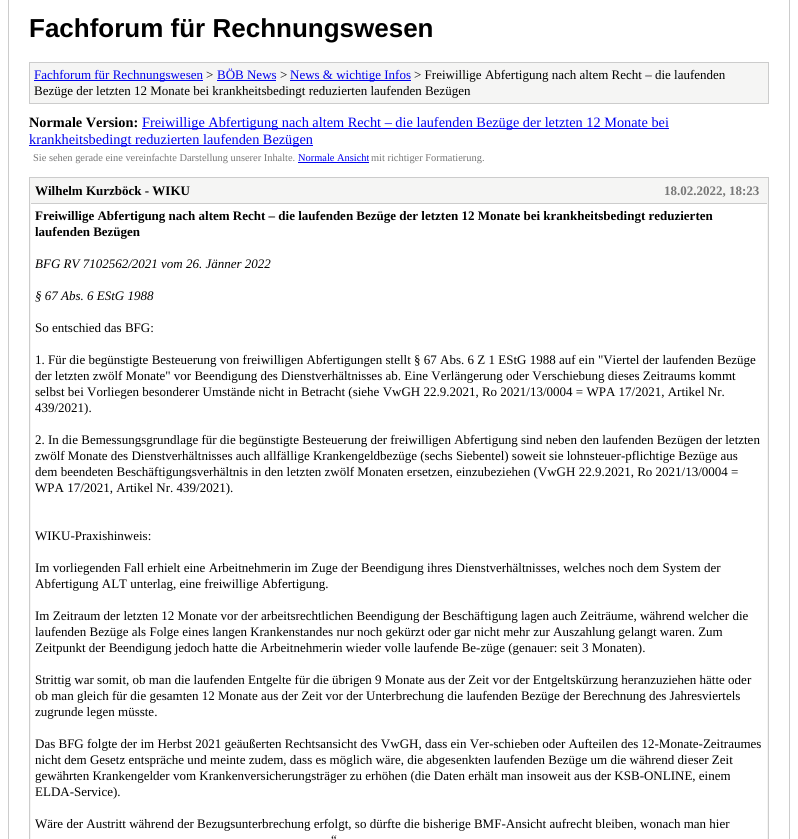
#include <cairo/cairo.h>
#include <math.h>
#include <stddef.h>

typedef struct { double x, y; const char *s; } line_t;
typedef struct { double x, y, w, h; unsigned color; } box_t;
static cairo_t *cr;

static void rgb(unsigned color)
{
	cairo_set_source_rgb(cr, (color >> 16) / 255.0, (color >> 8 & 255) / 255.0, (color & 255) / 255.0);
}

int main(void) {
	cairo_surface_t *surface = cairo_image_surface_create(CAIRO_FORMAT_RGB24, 798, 839);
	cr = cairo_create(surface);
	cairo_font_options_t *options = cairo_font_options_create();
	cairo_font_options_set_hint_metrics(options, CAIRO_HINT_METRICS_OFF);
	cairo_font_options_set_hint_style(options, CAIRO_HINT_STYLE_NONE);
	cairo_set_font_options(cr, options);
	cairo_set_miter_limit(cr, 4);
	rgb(0xffffff);
	cairo_paint(cr);
	cairo_rectangle(cr, 8.5, -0.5, 781, 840);
	rgb(0xcccccc);
	cairo_set_line_width(cr, 1);
	cairo_stroke(cr);
	rgb(0xf5f5f4);
	cairo_rectangle(cr, 29.5, 62.5, 739, 41);
	cairo_fill_preserve(cr);
	rgb(0xcccccc);
	cairo_stroke(cr);
	{
		static const box_t items[] = {
			{34, 80, 169, 1, 0x0000ee},
			{217, 80, 59, 1, 0x0000ee},
			{290, 80, 121, 1, 0x0000ee},
			{142, 128, 527, 1, 0x0000ee},
			{29, 145, 284, 1, 0x0000ee},
			{298, 162, 71, 1, 0x0000ee},
		};
		for (size_t i = 0; i < sizeof items / sizeof *items; i++) {
			rgb(items[i].color);
			cairo_rectangle(cr, items[i].x, items[i].y, items[i].w, items[i].h);
			cairo_fill(cr);
		}
	}
	rgb(0xf5f5f4);
	cairo_rectangle(cr, 29.5, 177.5, 739, 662);
	cairo_fill_preserve(cr);
	rgb(0xcccccc);
	cairo_stroke(cr);
	cairo_rectangle(cr, 31, 203, 736, 1);
	cairo_fill(cr);
	rgb(0xffffff);
	cairo_rectangle(cr, 31, 204, 736, 635);
	cairo_fill(cr);
	cairo_select_font_face(cr, "Liberation Sans", CAIRO_FONT_SLANT_NORMAL, CAIRO_FONT_WEIGHT_BOLD);
	cairo_set_font_size(cr, 26);
	rgb(0x000000);
	cairo_move_to(cr, 29, 37);
	cairo_show_text(cr, "Fachforum für Rechnungswesen");
	cairo_select_font_face(cr, "Liberation Serif", CAIRO_FONT_SLANT_NORMAL, CAIRO_FONT_WEIGHT_NORMAL);
	cairo_set_font_size(cr, 13);
	rgb(0x0000ee);
	cairo_move_to(cr, 34, 79);
	cairo_show_text(cr, "Fachforum für Rechnungswesen");
	rgb(0x000000);
	cairo_move_to(cr, 206, 79);
	cairo_show_text(cr, ">");
	rgb(0x0000ee);
	cairo_move_to(cr, 217, 79);
	cairo_show_text(cr, "BÖB News");
	rgb(0x000000);
	cairo_move_to(cr, 280, 79);
	cairo_show_text(cr, ">");
	rgb(0x0000ee);
	cairo_move_to(cr, 290, 79);
	cairo_show_text(cr, "News & wichtige Infos");
	rgb(0x000000);
	cairo_move_to(cr, 414, 79);
	cairo_show_text(cr, "> Freiwillige Abfertigung nach altem Recht – die laufenden");
	cairo_move_to(cr, 34, 95);
	cairo_show_text(cr, "Bezüge der letzten 12 Monate bei krankheitsbedingt reduzierten laufenden Bezügen");
	cairo_select_font_face(cr, "Liberation Serif", CAIRO_FONT_SLANT_NORMAL, CAIRO_FONT_WEIGHT_BOLD);
	cairo_set_font_size(cr, 14.3);
	cairo_move_to(cr, 29, 127);
	cairo_show_text(cr, "Normale Version:");
	cairo_select_font_face(cr, "Liberation Serif", CAIRO_FONT_SLANT_NORMAL, CAIRO_FONT_WEIGHT_NORMAL);
	rgb(0x0000ee);
	cairo_move_to(cr, 142, 127);
	cairo_show_text(cr, "Freiwillige Abfertigung nach altem Recht – die laufenden Bezüge der letzten 12 Monate bei");
	cairo_move_to(cr, 29, 144);
	cairo_show_text(cr, "krankheitsbedingt reduzierten laufenden Bezügen");
	cairo_set_font_size(cr, 10.4);
	rgb(0x777777);
	cairo_move_to(cr, 33, 161);
	cairo_show_text(cr, "Sie sehen gerade eine vereinfachte Darstellung unserer Inhalte.");
	rgb(0x0000ee);
	cairo_move_to(cr, 298, 161);
	cairo_show_text(cr, "Normale Ansicht");
	rgb(0x777777);
	cairo_move_to(cr, 371, 161);
	cairo_show_text(cr, "mit richtiger Formatierung.");
	cairo_select_font_face(cr, "Liberation Serif", CAIRO_FONT_SLANT_NORMAL, CAIRO_FONT_WEIGHT_BOLD);
	cairo_set_font_size(cr, 13);
	rgb(0x000000);
	cairo_move_to(cr, 35, 195);
	cairo_show_text(cr, "Wilhelm Kurzböck - WIKU");
	rgb(0x777777);
	cairo_move_to(cr, 664, 195);
	cairo_show_text(cr, "18.02.2022, 18:23");
	rgb(0x000000);
	cairo_move_to(cr, 35, 220);
	cairo_show_text(cr, "Freiwillige Abfertigung nach altem Recht – die laufenden Bezüge der letzten 12 Monate bei krankheitsbedingt reduzierten");
	cairo_move_to(cr, 35, 236);
	cairo_show_text(cr, "laufenden Bezügen");
	cairo_select_font_face(cr, "Liberation Serif", CAIRO_FONT_SLANT_ITALIC, CAIRO_FONT_WEIGHT_NORMAL);
	cairo_move_to(cr, 35, 268);
	cairo_show_text(cr, "BFG RV 7102562/2021 vom 26. Jänner 2022");
	cairo_move_to(cr, 35, 300);
	cairo_show_text(cr, "§ 67 Abs. 6 EStG 1988");
	cairo_select_font_face(cr, "Liberation Serif", CAIRO_FONT_SLANT_NORMAL, CAIRO_FONT_WEIGHT_NORMAL);
	{
		static const line_t items[] = {
			{35, 332, "So entschied das BFG:"},
			{35, 364, "1. Für die begünstigte Besteuerung von freiwilligen Abfertigungen stellt § 67 Abs. 6 Z 1 EStG 1988 auf ein \"Viertel der laufenden Bezüge"},
			{35, 380, "der letzten zwölf Monate\" vor Beendigung des Dienstverhältnisses ab. Eine Verlängerung oder Verschiebung dieses Zeitraums kommt"},
			{35, 396, "selbst bei Vorliegen besonderer Umstände nicht in Betracht (siehe VwGH 22.9.2021, Ro 2021/13/0004 = WPA 17/2021, Artikel Nr."},
			{35, 412, "439/2021)."},
			{35, 444, "2. In die Bemessungsgrundlage für die begünstigte Besteuerung der freiwilligen Abfertigung sind neben den laufenden Bezügen der letzten"},
			{35, 460, "zwölf Monate des Dienstverhältnisses auch allfällige Krankengeldbezüge (sechs Siebentel) soweit sie lohnsteuer-pflichtige Bezüge aus"},
			{35, 476, "dem beendeten Beschäftigungsverhältnis in den letzten zwölf Monaten ersetzen, einzubeziehen (VwGH 22.9.2021, Ro 2021/13/0004 ="},
			{35, 492, "WPA 17/2021, Artikel Nr. 439/2021)."},
			{35, 540, "WIKU-Praxishinweis:"},
			{35, 572, "Im vorliegenden Fall erhielt eine Arbeitnehmerin im Zuge der Beendigung ihres Dienstverhältnisses, welches noch dem System der"},
			{35, 588, "Abfertigung ALT unterlag, eine freiwillige Abfertigung."},
			{35, 620, "Im Zeitraum der letzten 12 Monate vor der arbeitsrechtlichen Beendigung der Beschäftigung lagen auch Zeiträume, während welcher die"},
			{35, 636, "laufenden Bezüge als Folge eines langen Krankenstandes nur noch gekürzt oder gar nicht mehr zur Auszahlung gelangt waren. Zum"},
			{35, 652, "Zeitpunkt der Beendigung jedoch hatte die Arbeitnehmerin wieder volle laufende Be-züge (genauer: seit 3 Monaten)."},
			{35, 684, "Strittig war somit, ob man die laufenden Entgelte für die übrigen 9 Monate aus der Zeit vor der Entgeltskürzung heranzuziehen hätte oder"},
			{35, 700, "ob man gleich für die gesamten 12 Monate aus der Zeit vor der Unterbrechung die laufenden Bezüge der Berechnung des Jahresviertels"},
			{35, 716, "zugrunde legen müsste."},
			{35, 748, "Das BFG folgte der im Herbst 2021 geäußerten Rechtsansicht des VwGH, dass ein Ver-schieben oder Aufteilen des 12-Monate-Zeitraumes"},
			{35, 764, "nicht dem Gesetz entspräche und meinte zudem, dass es möglich wäre, die abgesenkten laufenden Bezüge um die während dieser Zeit"},
			{35, 780, "gewährten Krankengelder vom Krankenversicherungsträger zu erhöhen (die Daten erhält man insoweit aus der KSB-ONLINE, einem"},
			{35, 796, "ELDA-Service)."},
			{35, 828, "Wäre der Austritt während der Bezugsunterbrechung erfolgt, so dürfte die bisherige BMF-Ansicht aufrecht bleiben, wonach man hier"},
			{331, 844, "“"},
		};
		for (size_t i = 0; i < sizeof items / sizeof *items; i++) {
			cairo_move_to(cr, items[i].x, items[i].y);
			cairo_show_text(cr, items[i].s);
		}
	}
	cairo_surface_write_to_png(surface, "page.png");
	cairo_font_options_destroy(options);
	cairo_destroy(cr);
	cairo_surface_destroy(surface);
	return 0;
}
